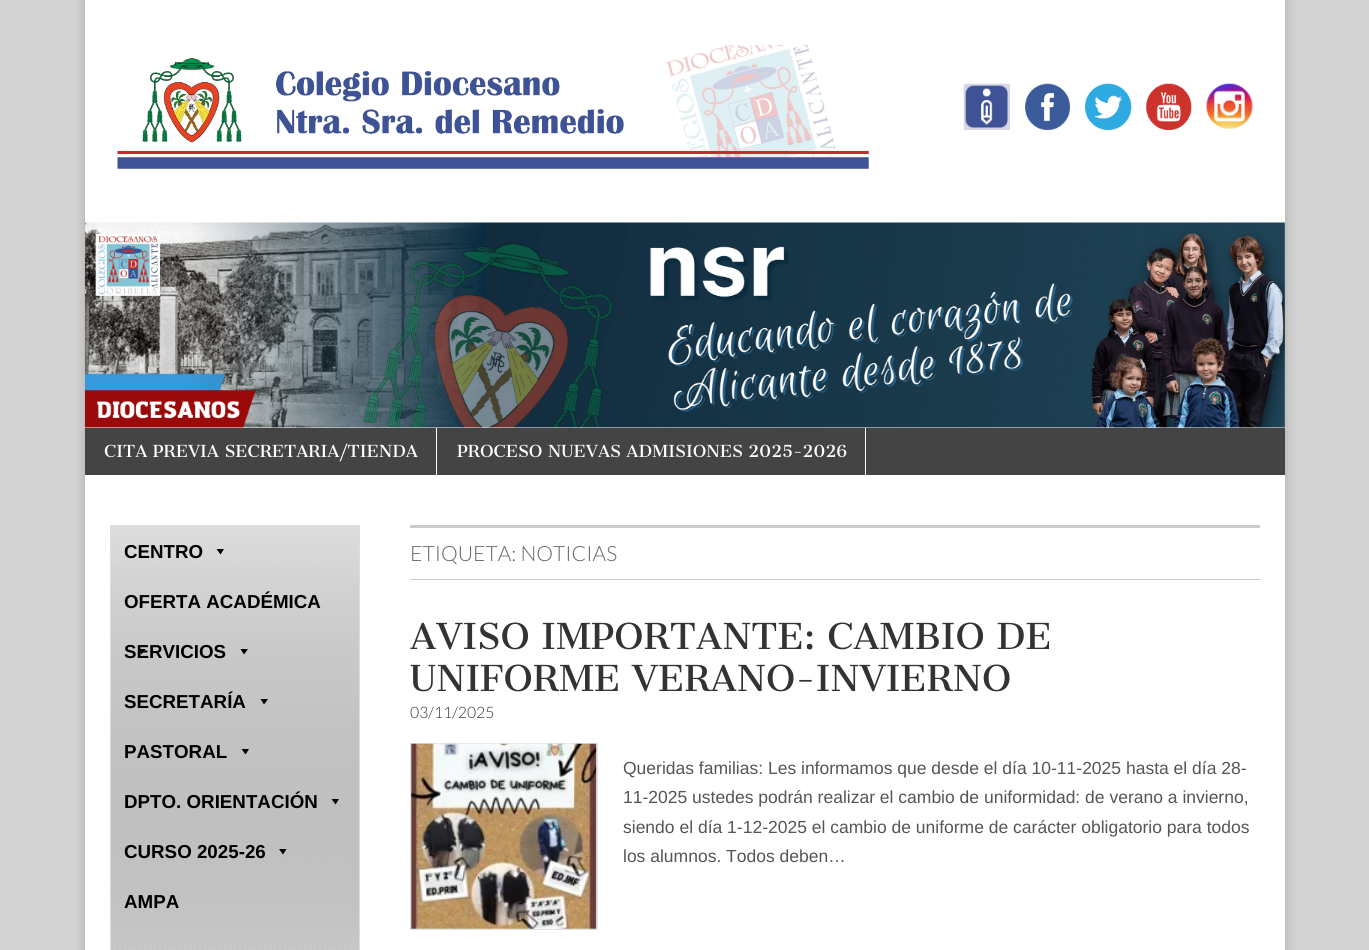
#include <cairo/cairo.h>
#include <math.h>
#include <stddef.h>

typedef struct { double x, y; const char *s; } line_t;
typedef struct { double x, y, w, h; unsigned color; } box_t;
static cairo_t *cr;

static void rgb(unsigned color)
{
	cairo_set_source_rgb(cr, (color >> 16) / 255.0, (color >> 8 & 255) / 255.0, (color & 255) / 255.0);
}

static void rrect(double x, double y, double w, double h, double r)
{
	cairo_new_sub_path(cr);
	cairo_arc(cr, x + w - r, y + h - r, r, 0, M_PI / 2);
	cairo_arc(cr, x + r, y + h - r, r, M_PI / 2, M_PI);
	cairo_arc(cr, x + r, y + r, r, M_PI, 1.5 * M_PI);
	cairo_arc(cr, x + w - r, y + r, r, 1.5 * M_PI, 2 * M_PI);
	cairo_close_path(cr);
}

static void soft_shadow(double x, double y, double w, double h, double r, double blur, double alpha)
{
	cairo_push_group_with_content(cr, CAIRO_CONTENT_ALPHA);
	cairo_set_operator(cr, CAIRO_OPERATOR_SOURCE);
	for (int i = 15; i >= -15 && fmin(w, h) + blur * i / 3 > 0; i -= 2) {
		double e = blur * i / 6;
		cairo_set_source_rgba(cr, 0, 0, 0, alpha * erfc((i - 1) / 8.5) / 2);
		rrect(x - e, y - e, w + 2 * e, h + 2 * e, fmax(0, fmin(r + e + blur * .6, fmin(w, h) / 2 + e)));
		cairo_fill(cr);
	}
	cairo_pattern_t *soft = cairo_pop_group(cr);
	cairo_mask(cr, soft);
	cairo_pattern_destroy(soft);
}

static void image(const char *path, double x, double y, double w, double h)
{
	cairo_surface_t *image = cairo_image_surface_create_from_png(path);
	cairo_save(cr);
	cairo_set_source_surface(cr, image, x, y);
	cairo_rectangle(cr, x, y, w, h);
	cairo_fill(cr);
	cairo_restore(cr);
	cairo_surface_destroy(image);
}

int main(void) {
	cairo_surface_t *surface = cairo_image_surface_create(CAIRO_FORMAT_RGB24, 1369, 950);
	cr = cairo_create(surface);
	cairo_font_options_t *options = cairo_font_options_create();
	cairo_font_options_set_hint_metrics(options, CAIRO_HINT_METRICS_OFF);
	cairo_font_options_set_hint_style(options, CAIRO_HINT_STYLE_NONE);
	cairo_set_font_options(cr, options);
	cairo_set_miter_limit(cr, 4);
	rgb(0xd3d3d3);
	cairo_paint(cr);
	rgb(0x000000);
	soft_shadow(85, 0, 1200, 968, 0, 6, 0.2);
	rgb(0xffffff);
	cairo_rectangle(cr, 85, 0, 1200, 950);
	cairo_fill(cr);
	image("img/1.png", 117, 45, 752, 124);
	image("img/2.png", 963, 83, 47, 47);
	image("img/3.png", 1025, 83, 45, 47);
	image("img/4.png", 1085, 83, 47, 47);
	image("img/5.png", 1146, 83, 46, 47);
	image("img/6.png", 1206, 83, 47, 46);
	image("img/7.png", 85, 222, 1200, 206);
	{
		static const box_t items[] = {
			{85, 428, 1200, 47, 0x444444},
			{436, 428, 1, 47, 0xffffff},
			{865, 428, 1, 47, 0xffffff},
		};
		for (size_t i = 0; i < sizeof items / sizeof *items; i++) {
			rgb(items[i].color);
			cairo_rectangle(cr, items[i].x, items[i].y, items[i].w, items[i].h);
			cairo_fill(cr);
		}
	}
	image("img/8.png", 111, 526, 248, 424);
	cairo_rectangle(cr, 110.5, 525.5, 249, 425);
	rgb(0xdddddd);
	cairo_set_line_width(cr, 1);
	cairo_stroke(cr);
	rgb(0x000000);
	cairo_new_path(cr);
	cairo_move_to(cr, 224, 549);
	cairo_line_to(cr, 220.5, 554.5);
	cairo_line_to(cr, 216.5, 549);
	cairo_close_path(cr);
	cairo_fill(cr);
	cairo_new_path(cr);
	cairo_move_to(cr, 145.5, 649);
	cairo_line_to(cr, 141.5, 654.5);
	cairo_line_to(cr, 138, 649);
	cairo_close_path(cr);
	cairo_fill(cr);
	cairo_new_path(cr);
	cairo_move_to(cr, 248, 649);
	cairo_line_to(cr, 244, 654.5);
	cairo_line_to(cr, 240.5, 649);
	cairo_close_path(cr);
	cairo_fill(cr);
	cairo_new_path(cr);
	cairo_move_to(cr, 268, 699);
	cairo_line_to(cr, 264, 704.5);
	cairo_line_to(cr, 260.5, 699);
	cairo_close_path(cr);
	cairo_fill(cr);
	cairo_new_path(cr);
	cairo_move_to(cr, 249, 749);
	cairo_line_to(cr, 245.5, 754.5);
	cairo_line_to(cr, 241.5, 749);
	cairo_close_path(cr);
	cairo_fill(cr);
	cairo_new_path(cr);
	cairo_move_to(cr, 339, 799);
	cairo_line_to(cr, 335.5, 804.5);
	cairo_line_to(cr, 331.5, 799);
	cairo_close_path(cr);
	cairo_fill(cr);
	cairo_new_path(cr);
	cairo_move_to(cr, 286.5, 849);
	cairo_line_to(cr, 283, 854.5);
	cairo_line_to(cr, 279, 849);
	cairo_close_path(cr);
	cairo_fill(cr);
	rgb(0xcccccc);
	cairo_rectangle(cr, 410, 525, 850, 3);
	cairo_fill(cr);
	cairo_rectangle(cr, 410, 579, 850, 1);
	cairo_fill(cr);
	cairo_rectangle(cr, 410.5, 743.5, 187, 186);
	rgb(0xe2e2e2);
	cairo_stroke(cr);
	image("img/9.png", 411, 743, 186, 186);
	cairo_select_font_face(cr, "Cantata One", CAIRO_FONT_SLANT_NORMAL, CAIRO_FONT_WEIGHT_NORMAL);
	cairo_set_font_size(cr, 16.25);
	rgb(0xffffff);
	cairo_move_to(cr, 104, 457);
	cairo_show_text(cr, "CITA PREVIA SECRETARIA/TIENDA");
	cairo_move_to(cr, 457, 457);
	cairo_show_text(cr, "PROCESO NUEVAS ADMISIONES 2025-2026");
	cairo_select_font_face(cr, "Liberation Sans", CAIRO_FONT_SLANT_NORMAL, CAIRO_FONT_WEIGHT_BOLD);
	cairo_set_font_size(cr, 18.75);
	rgb(0x000000);
	{
		static const line_t items[] = {
			{124, 558, "CENTRO"},
			{124, 608, "OFERTA ACADÉMICA"},
			{124, 658, "SERVICIOS"},
			{124, 708, "SECRETARÍA"},
			{124, 758, "PASTORAL"},
			{124, 808, "DPTO. ORIENTACIÓN"},
			{124, 858, "CURSO 2025-26"},
			{124, 908, "AMPA"},
		};
		for (size_t i = 0; i < sizeof items / sizeof *items; i++) {
			cairo_move_to(cr, items[i].x, items[i].y);
			cairo_show_text(cr, items[i].s);
		}
	}
	cairo_select_font_face(cr, "Lato Light", CAIRO_FONT_SLANT_NORMAL, CAIRO_FONT_WEIGHT_NORMAL);
	cairo_set_font_size(cr, 21);
	rgb(0x666666);
	cairo_move_to(cr, 410, 561);
	cairo_show_text(cr, "ETIQUETA: NOTICIAS");
	cairo_select_font_face(cr, "Cantata One", CAIRO_FONT_SLANT_NORMAL, CAIRO_FONT_WEIGHT_NORMAL);
	cairo_set_font_size(cr, 35);
	rgb(0x333333);
	cairo_move_to(cr, 410, 649);
	cairo_show_text(cr, "AVISO IMPORTANTE: CAMBIO DE");
	cairo_move_to(cr, 410, 691);
	cairo_show_text(cr, "UNIFORME VERANO-INVIERNO");
	cairo_select_font_face(cr, "Lato Light", CAIRO_FONT_SLANT_NORMAL, CAIRO_FONT_WEIGHT_NORMAL);
	cairo_set_font_size(cr, 15.75);
	cairo_move_to(cr, 410, 718);
	cairo_show_text(cr, "03/11/2025");
	cairo_select_font_face(cr, "Liberation Sans", CAIRO_FONT_SLANT_NORMAL, CAIRO_FONT_WEIGHT_NORMAL);
	cairo_set_font_size(cr, 17.5);
	rgb(0x555555);
	{
		static const line_t items[] = {
			{623, 774, "Queridas familias: Les informamos que desde el día 10-11-2025 hasta el día 28-"},
			{623, 803, "11-2025 ustedes podrán realizar el cambio de uniformidad: de verano a invierno,"},
			{623, 833, "siendo el día 1-12-2025 el cambio de uniforme de carácter obligatorio para todos"},
			{623, 862, "los alumnos. Todos deben…"},
		};
		for (size_t i = 0; i < sizeof items / sizeof *items; i++) {
			cairo_move_to(cr, items[i].x, items[i].y);
			cairo_show_text(cr, items[i].s);
		}
	}
	cairo_surface_write_to_png(surface, "page.png");
	cairo_font_options_destroy(options);
	cairo_destroy(cr);
	cairo_surface_destroy(surface);
	return 0;
}
